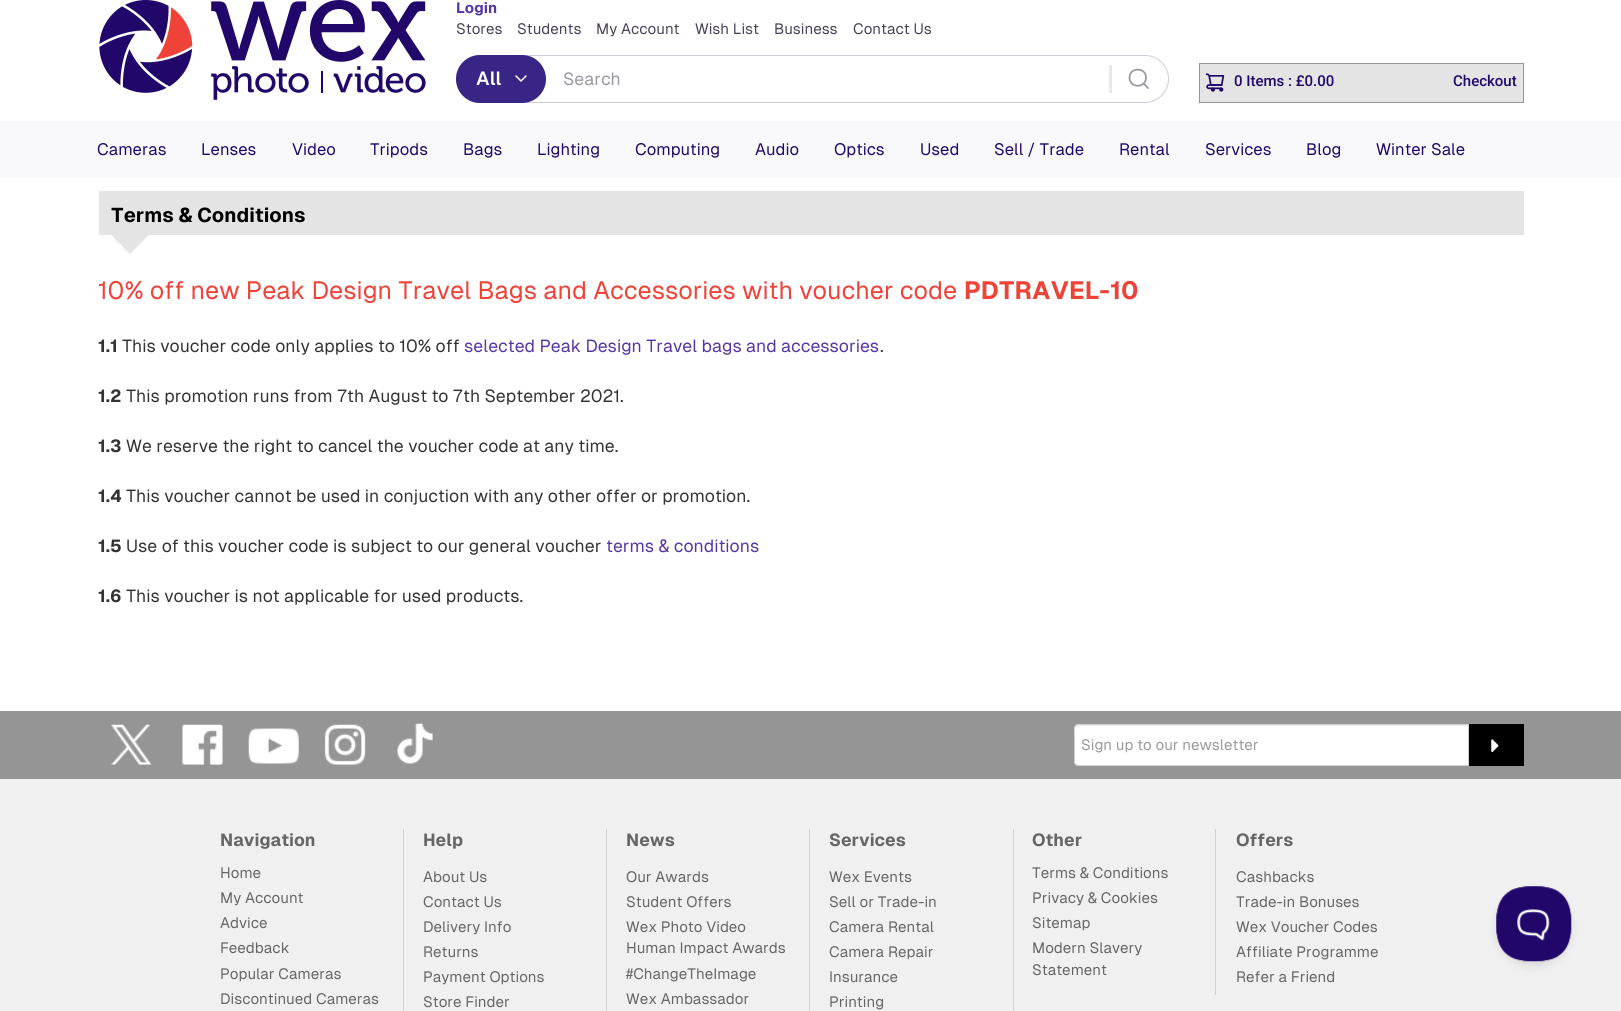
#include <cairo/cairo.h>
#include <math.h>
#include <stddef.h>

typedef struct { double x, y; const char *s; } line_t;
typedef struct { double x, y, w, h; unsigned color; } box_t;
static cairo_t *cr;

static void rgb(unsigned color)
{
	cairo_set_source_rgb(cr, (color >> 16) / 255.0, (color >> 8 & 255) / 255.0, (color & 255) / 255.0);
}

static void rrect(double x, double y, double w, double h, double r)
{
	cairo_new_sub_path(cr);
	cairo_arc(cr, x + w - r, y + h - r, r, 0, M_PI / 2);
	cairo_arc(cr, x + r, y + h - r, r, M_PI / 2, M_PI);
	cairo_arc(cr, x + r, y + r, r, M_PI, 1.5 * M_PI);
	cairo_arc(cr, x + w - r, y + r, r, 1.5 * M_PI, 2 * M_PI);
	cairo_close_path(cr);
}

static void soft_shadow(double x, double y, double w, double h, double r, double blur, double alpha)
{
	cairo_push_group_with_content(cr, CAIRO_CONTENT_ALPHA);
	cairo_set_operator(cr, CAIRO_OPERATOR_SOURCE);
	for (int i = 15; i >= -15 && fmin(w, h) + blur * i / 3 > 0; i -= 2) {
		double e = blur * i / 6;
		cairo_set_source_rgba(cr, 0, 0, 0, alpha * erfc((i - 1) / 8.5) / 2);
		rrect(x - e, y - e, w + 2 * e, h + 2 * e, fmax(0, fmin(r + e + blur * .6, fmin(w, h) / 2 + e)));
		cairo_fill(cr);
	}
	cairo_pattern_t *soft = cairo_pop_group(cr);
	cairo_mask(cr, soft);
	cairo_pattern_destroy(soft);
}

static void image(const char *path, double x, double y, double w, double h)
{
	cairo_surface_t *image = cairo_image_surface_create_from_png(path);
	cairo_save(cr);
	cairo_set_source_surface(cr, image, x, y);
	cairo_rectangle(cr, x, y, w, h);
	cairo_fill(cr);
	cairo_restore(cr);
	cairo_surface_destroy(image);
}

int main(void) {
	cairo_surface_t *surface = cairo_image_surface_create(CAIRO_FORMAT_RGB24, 1621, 1011);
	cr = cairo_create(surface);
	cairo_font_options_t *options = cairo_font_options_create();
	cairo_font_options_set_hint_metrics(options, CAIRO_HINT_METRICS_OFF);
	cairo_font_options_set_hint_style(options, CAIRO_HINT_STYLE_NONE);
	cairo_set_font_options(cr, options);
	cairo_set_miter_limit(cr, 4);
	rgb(0xffffff);
	cairo_paint(cr);
	image("img/1.png", 99, 0, 327, 100);
	rrect(456.5, 55.5, 712, 47, 23.5);
	rgb(0xd0ccd6);
	cairo_set_line_width(cr, 1);
	cairo_stroke(cr);
	rgb(0x382586);
	rrect(456, 55, 90, 48, 24);
	cairo_fill(cr);
	cairo_new_path(cr);
	cairo_move_to(cr, 516, 76);
	cairo_line_to(cr, 521, 81);
	cairo_line_to(cr, 526, 76);
	rgb(0xffffff);
	cairo_set_line_width(cr, 1.5);
	cairo_set_line_cap(cr, CAIRO_LINE_CAP_ROUND);
	cairo_set_line_join(cr, CAIRO_LINE_JOIN_ROUND);
	cairo_stroke(cr);
	rgb(0xe9e6f0);
	cairo_rectangle(cr, 1109, 65, 3, 28);
	cairo_fill(cr);
	cairo_new_path(cr);
	cairo_move_to(cr, 1148, 88);
	cairo_line_to(cr, 1143.5, 83.5);
	cairo_move_to(cr, 1146, 77.5);
	cairo_curve_to(cr, 1146, 88.5, 1129.5, 88.5, 1129.5, 77.5);
	cairo_curve_to(cr, 1129.5, 67, 1146, 67, 1146, 77.5);
	cairo_close_path(cr);
	rgb(0x9a98a0);
	cairo_set_line_width(cr, 1.8);
	cairo_stroke(cr);
	rgb(0xe4e4e4);
	cairo_rectangle(cr, 1199.5, 63.5, 324, 39);
	cairo_fill_preserve(cr);
	rgb(0x959595);
	cairo_set_line_width(cr, 1);
	cairo_set_line_cap(cr, CAIRO_LINE_CAP_BUTT);
	cairo_set_line_join(cr, CAIRO_LINE_JOIN_MITER);
	cairo_stroke(cr);
	image("img/2.png", 1205, 73, 20, 19);
	rgb(0xf9f9fb);
	cairo_rectangle(cr, 0, 121, 1621, 57);
	cairo_fill(cr);
	rgb(0xe4e4e4);
	cairo_rectangle(cr, 99, 191, 1425, 44);
	cairo_fill(cr);
	cairo_new_path(cr);
	cairo_move_to(cr, 105, 229);
	cairo_line_to(cr, 155, 229);
	cairo_line_to(cr, 130, 254);
	cairo_close_path(cr);
	cairo_fill(cr);
	rgb(0xf0f0f0);
	cairo_rectangle(cr, 0, 779, 1621, 232);
	cairo_fill(cr);
	rgb(0x959595);
	cairo_rectangle(cr, 0, 711, 1621, 68);
	cairo_fill(cr);
	image("img/3.png", 111, 724, 41, 41);
	image("img/4.png", 182, 724, 41, 41);
	image("img/5.png", 248, 728, 51, 36);
	image("img/6.png", 324, 724, 42, 41);
	image("img/7.png", 397, 723, 36, 41);
	rgb(0xffffff);
	cairo_new_path(cr);
	cairo_move_to(cr, 1079, 724);
	cairo_line_to(cr, 1469, 724);
	cairo_line_to(cr, 1469, 766);
	cairo_line_to(cr, 1079, 766);
	cairo_curve_to(cr, 1076, 766, 1074, 764, 1074, 761);
	cairo_line_to(cr, 1074, 729);
	cairo_curve_to(cr, 1074, 726, 1076, 724, 1079, 724);
	cairo_close_path(cr);
	cairo_fill(cr);
	rgb(0xececec);
	cairo_new_path(cr);
	cairo_move_to(cr, 1079, 726);
	cairo_line_to(cr, 1468, 726);
	cairo_line_to(cr, 1468, 725);
	cairo_line_to(cr, 1079, 725);
	cairo_curve_to(cr, 1076, 725, 1075, 727, 1075, 730);
	cairo_curve_to(cr, 1075, 728, 1077, 726, 1079, 726);
	cairo_close_path(cr);
	cairo_fill(cr);
	cairo_new_path(cr);
	cairo_move_to(cr, 1079, 724.5);
	cairo_line_to(cr, 1468.5, 724.5);
	cairo_line_to(cr, 1468.5, 765.5);
	cairo_line_to(cr, 1079, 765.5);
	cairo_curve_to(cr, 1076.5, 765.5, 1074.5, 763.5, 1074.5, 761);
	cairo_line_to(cr, 1074.5, 729);
	cairo_curve_to(cr, 1074.5, 726.5, 1076.5, 724.5, 1079, 724.5);
	cairo_close_path(cr);
	rgb(0xd0d0d0);
	cairo_stroke(cr);
	rgb(0x000000);
	cairo_rectangle(cr, 1469, 724, 55, 42);
	cairo_fill(cr);
	image("img/8.png", 1491, 739, 8, 14);
	{
		static const box_t items[] = {
			{403, 829, 1, 182, 0xd0d0d0},
			{606, 829, 1, 182, 0xd0d0d0},
			{809, 829, 1, 182, 0xd0d0d0},
			{1013, 829, 1, 182, 0xd0d0d0},
			{1215, 829, 1, 166, 0xd0d0d0},
		};
		for (size_t i = 0; i < sizeof items / sizeof *items; i++) {
			rgb(items[i].color);
			cairo_rectangle(cr, items[i].x, items[i].y, items[i].w, items[i].h);
			cairo_fill(cr);
		}
	}
	rgb(0x000000);
	soft_shadow(1496, 891, 75, 75, 37.5, 4.5, 0.1);
	image("img/9.png", 1496, 886, 76, 76);
	cairo_select_font_face(cr, "Geist", CAIRO_FONT_SLANT_NORMAL, CAIRO_FONT_WEIGHT_BOLD);
	cairo_set_font_size(cr, 15);
	rgb(0x5636a3);
	cairo_move_to(cr, 456, 13);
	cairo_show_text(cr, "Login");
	cairo_select_font_face(cr, "Geist", CAIRO_FONT_SLANT_NORMAL, CAIRO_FONT_WEIGHT_NORMAL);
	rgb(0x484158);
	{
		static const line_t items[] = {
			{456, 34, "Stores"},
			{517, 34, "Students"},
			{596, 34, "My Account"},
			{695, 34, "Wish List"},
			{774, 34, "Business"},
			{853, 34, "Contact Us"},
		};
		for (size_t i = 0; i < sizeof items / sizeof *items; i++) {
			cairo_move_to(cr, items[i].x, items[i].y);
			cairo_show_text(cr, items[i].s);
		}
	}
	cairo_select_font_face(cr, "Geist SemiBold", CAIRO_FONT_SLANT_NORMAL, CAIRO_FONT_WEIGHT_NORMAL);
	cairo_set_font_size(cr, 19);
	rgb(0xffffff);
	cairo_move_to(cr, 476, 85);
	cairo_show_text(cr, "All");
	cairo_select_font_face(cr, "Geist", CAIRO_FONT_SLANT_NORMAL, CAIRO_FONT_WEIGHT_NORMAL);
	cairo_set_font_size(cr, 17.5);
	rgb(0x9a98a0);
	cairo_move_to(cr, 563, 85);
	cairo_show_text(cr, "Search");
	cairo_select_font_face(cr, "Roboto Medium", CAIRO_FONT_SLANT_NORMAL, CAIRO_FONT_WEIGHT_NORMAL);
	cairo_set_font_size(cr, 15);
	rgb(0x21076a);
	cairo_move_to(cr, 1234, 86);
	cairo_show_text(cr, "0 Items : £0.00");
	cairo_move_to(cr, 1453, 86);
	cairo_show_text(cr, "Checkout");
	cairo_select_font_face(cr, "Geist", CAIRO_FONT_SLANT_NORMAL, CAIRO_FONT_WEIGHT_NORMAL);
	cairo_set_font_size(cr, 16.5);
	{
		static const line_t items[] = {
			{97, 155, "Cameras"},
			{201, 155, "Lenses"},
			{292, 155, "Video"},
			{370, 155, "Tripods"},
			{463, 155, "Bags"},
			{537, 155, "Lighting"},
			{635, 155, "Computing"},
			{755, 155, "Audio"},
			{834, 155, "Optics"},
			{920, 155, "Used"},
			{994, 155, "Sell / Trade"},
			{1119, 155, "Rental"},
			{1205, 155, "Services"},
			{1306, 155, "Blog"},
			{1376, 155, "Winter Sale"},
		};
		for (size_t i = 0; i < sizeof items / sizeof *items; i++) {
			cairo_move_to(cr, items[i].x, items[i].y);
			cairo_show_text(cr, items[i].s);
		}
	}
	cairo_select_font_face(cr, "Geist", CAIRO_FONT_SLANT_NORMAL, CAIRO_FONT_WEIGHT_BOLD);
	cairo_set_font_size(cr, 20);
	rgb(0x000000);
	cairo_move_to(cr, 111, 222);
	cairo_show_text(cr, "Terms & Conditions");
	cairo_select_font_face(cr, "Geist", CAIRO_FONT_SLANT_NORMAL, CAIRO_FONT_WEIGHT_NORMAL);
	cairo_set_font_size(cr, 25);
	rgb(0xef4238);
	cairo_move_to(cr, 98, 299);
	cairo_show_text(cr, "10% off new Peak Design Travel Bags and Accessories with voucher code");
	cairo_select_font_face(cr, "Geist", CAIRO_FONT_SLANT_NORMAL, CAIRO_FONT_WEIGHT_BOLD);
	cairo_move_to(cr, 964, 299);
	cairo_show_text(cr, "PDTRAVEL-10");
	cairo_set_font_size(cr, 17.5);
	rgb(0x333333);
	cairo_move_to(cr, 98, 352);
	cairo_show_text(cr, "1.1");
	cairo_select_font_face(cr, "Geist", CAIRO_FONT_SLANT_NORMAL, CAIRO_FONT_WEIGHT_NORMAL);
	cairo_move_to(cr, 122, 352);
	cairo_show_text(cr, "This voucher code only applies to 10% off");
	rgb(0x5636a3);
	cairo_move_to(cr, 464, 352);
	cairo_show_text(cr, "selected Peak Design Travel bags and accessories");
	rgb(0x333333);
	cairo_move_to(cr, 880, 352);
	cairo_show_text(cr, ".");
	cairo_select_font_face(cr, "Geist", CAIRO_FONT_SLANT_NORMAL, CAIRO_FONT_WEIGHT_BOLD);
	cairo_move_to(cr, 98, 402);
	cairo_show_text(cr, "1.2");
	cairo_select_font_face(cr, "Geist", CAIRO_FONT_SLANT_NORMAL, CAIRO_FONT_WEIGHT_NORMAL);
	cairo_move_to(cr, 126, 402);
	cairo_show_text(cr, "This promotion runs from 7th August to 7th September 2021.");
	cairo_select_font_face(cr, "Geist", CAIRO_FONT_SLANT_NORMAL, CAIRO_FONT_WEIGHT_BOLD);
	cairo_move_to(cr, 98, 452);
	cairo_show_text(cr, "1.3");
	cairo_select_font_face(cr, "Geist", CAIRO_FONT_SLANT_NORMAL, CAIRO_FONT_WEIGHT_NORMAL);
	cairo_move_to(cr, 126, 452);
	cairo_show_text(cr, "We reserve the right to cancel the voucher code at any time.");
	cairo_select_font_face(cr, "Geist", CAIRO_FONT_SLANT_NORMAL, CAIRO_FONT_WEIGHT_BOLD);
	cairo_move_to(cr, 98, 502);
	cairo_show_text(cr, "1.4");
	cairo_select_font_face(cr, "Geist", CAIRO_FONT_SLANT_NORMAL, CAIRO_FONT_WEIGHT_NORMAL);
	cairo_move_to(cr, 126, 502);
	cairo_show_text(cr, "This voucher cannot be used in conjuction with any other offer or promotion.");
	cairo_select_font_face(cr, "Geist", CAIRO_FONT_SLANT_NORMAL, CAIRO_FONT_WEIGHT_BOLD);
	cairo_move_to(cr, 98, 552);
	cairo_show_text(cr, "1.5");
	cairo_select_font_face(cr, "Geist", CAIRO_FONT_SLANT_NORMAL, CAIRO_FONT_WEIGHT_NORMAL);
	cairo_move_to(cr, 126, 552);
	cairo_show_text(cr, "Use of this voucher code is subject to our general voucher");
	rgb(0x5636a3);
	cairo_move_to(cr, 606, 552);
	cairo_show_text(cr, "terms & conditions");
	cairo_select_font_face(cr, "Geist", CAIRO_FONT_SLANT_NORMAL, CAIRO_FONT_WEIGHT_BOLD);
	rgb(0x333333);
	cairo_move_to(cr, 98, 602);
	cairo_show_text(cr, "1.6");
	cairo_select_font_face(cr, "Geist", CAIRO_FONT_SLANT_NORMAL, CAIRO_FONT_WEIGHT_NORMAL);
	cairo_move_to(cr, 126, 602);
	cairo_show_text(cr, "This voucher is not applicable for used products.");
	cairo_set_font_size(cr, 15);
	rgb(0x999999);
	cairo_move_to(cr, 1081, 750);
	cairo_show_text(cr, "Sign up to our newsletter");
	cairo_select_font_face(cr, "Geist", CAIRO_FONT_SLANT_NORMAL, CAIRO_FONT_WEIGHT_BOLD);
	cairo_set_font_size(cr, 17.5);
	rgb(0x666666);
	cairo_move_to(cr, 220, 846);
	cairo_show_text(cr, "Navigation");
	cairo_select_font_face(cr, "Geist", CAIRO_FONT_SLANT_NORMAL, CAIRO_FONT_WEIGHT_NORMAL);
	cairo_set_font_size(cr, 15);
	{
		static const line_t items[] = {
			{220, 878, "Home"},
			{220, 903, "My Account"},
			{220, 928, "Advice"},
			{220, 953, "Feedback"},
			{220, 979, "Popular Cameras"},
			{220, 1004, "Discontinued Cameras"},
		};
		for (size_t i = 0; i < sizeof items / sizeof *items; i++) {
			cairo_move_to(cr, items[i].x, items[i].y);
			cairo_show_text(cr, items[i].s);
		}
	}
	cairo_select_font_face(cr, "Geist", CAIRO_FONT_SLANT_NORMAL, CAIRO_FONT_WEIGHT_BOLD);
	cairo_set_font_size(cr, 17.5);
	cairo_move_to(cr, 423, 846);
	cairo_show_text(cr, "Help");
	cairo_select_font_face(cr, "Geist", CAIRO_FONT_SLANT_NORMAL, CAIRO_FONT_WEIGHT_NORMAL);
	cairo_set_font_size(cr, 15);
	{
		static const line_t items[] = {
			{423, 882, "About Us"},
			{423, 907, "Contact Us"},
			{423, 932, "Delivery Info"},
			{423, 957, "Returns"},
			{423, 982, "Payment Options"},
			{423, 1007, "Store Finder"},
		};
		for (size_t i = 0; i < sizeof items / sizeof *items; i++) {
			cairo_move_to(cr, items[i].x, items[i].y);
			cairo_show_text(cr, items[i].s);
		}
	}
	cairo_select_font_face(cr, "Geist", CAIRO_FONT_SLANT_NORMAL, CAIRO_FONT_WEIGHT_BOLD);
	cairo_set_font_size(cr, 17.5);
	cairo_move_to(cr, 626, 846);
	cairo_show_text(cr, "News");
	cairo_select_font_face(cr, "Geist", CAIRO_FONT_SLANT_NORMAL, CAIRO_FONT_WEIGHT_NORMAL);
	cairo_set_font_size(cr, 15);
	{
		static const line_t items[] = {
			{626, 882, "Our Awards"},
			{626, 907, "Student Offers"},
			{626, 932, "Wex Photo Video"},
			{626, 953, "Human Impact Awards"},
			{626, 979, "#ChangeTheImage"},
			{626, 1004, "Wex Ambassador"},
		};
		for (size_t i = 0; i < sizeof items / sizeof *items; i++) {
			cairo_move_to(cr, items[i].x, items[i].y);
			cairo_show_text(cr, items[i].s);
		}
	}
	cairo_select_font_face(cr, "Geist", CAIRO_FONT_SLANT_NORMAL, CAIRO_FONT_WEIGHT_BOLD);
	cairo_set_font_size(cr, 17.5);
	cairo_move_to(cr, 829, 846);
	cairo_show_text(cr, "Services");
	cairo_select_font_face(cr, "Geist", CAIRO_FONT_SLANT_NORMAL, CAIRO_FONT_WEIGHT_NORMAL);
	cairo_set_font_size(cr, 15);
	{
		static const line_t items[] = {
			{829, 882, "Wex Events"},
			{829, 907, "Sell or Trade-in"},
			{829, 932, "Camera Rental"},
			{829, 957, "Camera Repair"},
			{829, 982, "Insurance"},
			{829, 1007, "Printing"},
		};
		for (size_t i = 0; i < sizeof items / sizeof *items; i++) {
			cairo_move_to(cr, items[i].x, items[i].y);
			cairo_show_text(cr, items[i].s);
		}
	}
	cairo_select_font_face(cr, "Geist", CAIRO_FONT_SLANT_NORMAL, CAIRO_FONT_WEIGHT_BOLD);
	cairo_set_font_size(cr, 17.5);
	cairo_move_to(cr, 1032, 846);
	cairo_show_text(cr, "Other");
	cairo_select_font_face(cr, "Geist", CAIRO_FONT_SLANT_NORMAL, CAIRO_FONT_WEIGHT_NORMAL);
	cairo_set_font_size(cr, 15);
	{
		static const line_t items[] = {
			{1032, 878, "Terms & Conditions"},
			{1032, 903, "Privacy & Cookies"},
			{1032, 928, "Sitemap"},
			{1032, 953, "Modern Slavery"},
			{1032, 975, "Statement"},
		};
		for (size_t i = 0; i < sizeof items / sizeof *items; i++) {
			cairo_move_to(cr, items[i].x, items[i].y);
			cairo_show_text(cr, items[i].s);
		}
	}
	cairo_select_font_face(cr, "Geist", CAIRO_FONT_SLANT_NORMAL, CAIRO_FONT_WEIGHT_BOLD);
	cairo_set_font_size(cr, 17.5);
	cairo_move_to(cr, 1236, 846);
	cairo_show_text(cr, "Offers");
	cairo_select_font_face(cr, "Geist", CAIRO_FONT_SLANT_NORMAL, CAIRO_FONT_WEIGHT_NORMAL);
	cairo_set_font_size(cr, 15);
	{
		static const line_t items[] = {
			{1236, 882, "Cashbacks"},
			{1236, 907, "Trade-in Bonuses"},
			{1236, 932, "Wex Voucher Codes"},
			{1236, 957, "Affiliate Programme"},
			{1236, 982, "Refer a Friend"},
		};
		for (size_t i = 0; i < sizeof items / sizeof *items; i++) {
			cairo_move_to(cr, items[i].x, items[i].y);
			cairo_show_text(cr, items[i].s);
		}
	}
	cairo_surface_write_to_png(surface, "page.png");
	cairo_font_options_destroy(options);
	cairo_destroy(cr);
	cairo_surface_destroy(surface);
	return 0;
}
